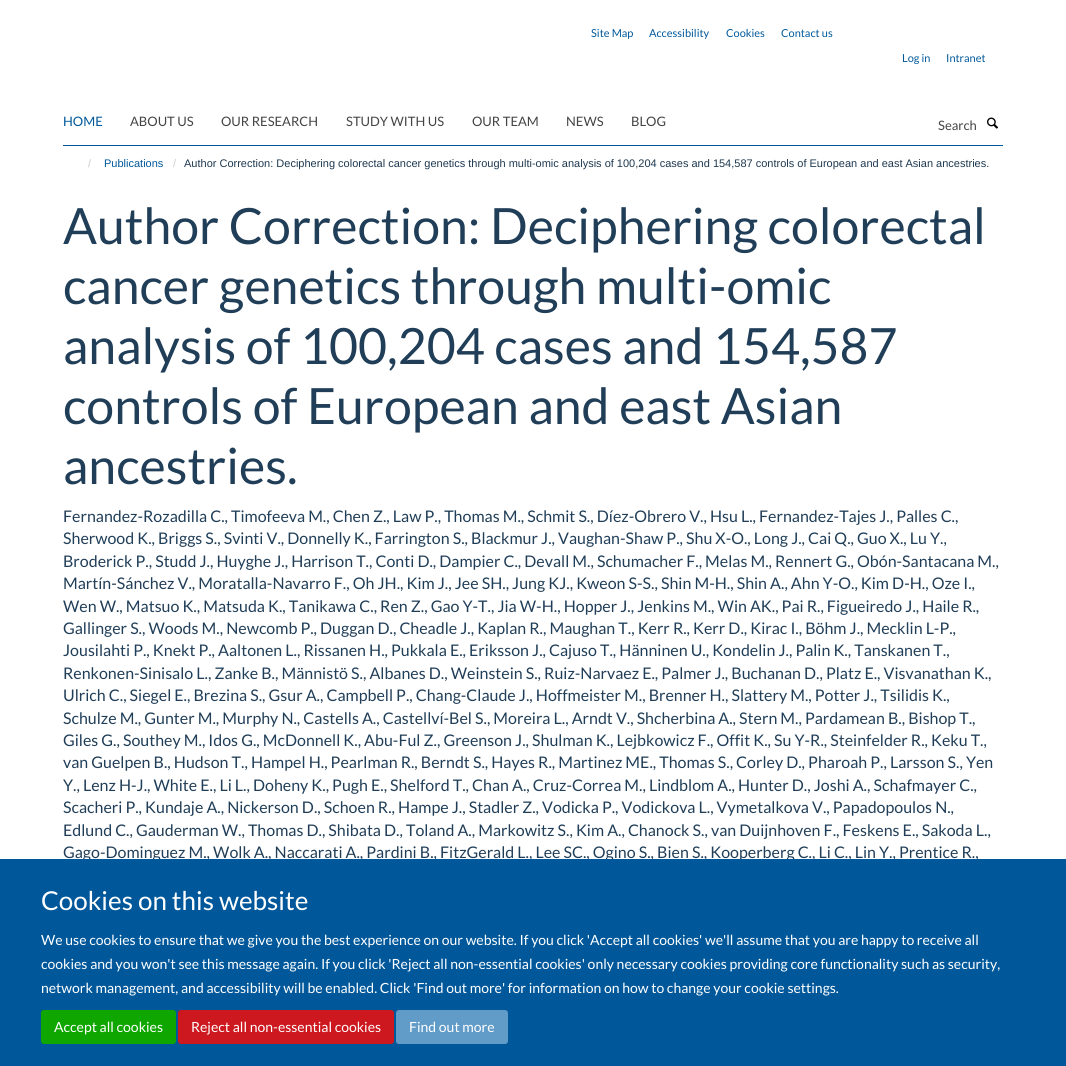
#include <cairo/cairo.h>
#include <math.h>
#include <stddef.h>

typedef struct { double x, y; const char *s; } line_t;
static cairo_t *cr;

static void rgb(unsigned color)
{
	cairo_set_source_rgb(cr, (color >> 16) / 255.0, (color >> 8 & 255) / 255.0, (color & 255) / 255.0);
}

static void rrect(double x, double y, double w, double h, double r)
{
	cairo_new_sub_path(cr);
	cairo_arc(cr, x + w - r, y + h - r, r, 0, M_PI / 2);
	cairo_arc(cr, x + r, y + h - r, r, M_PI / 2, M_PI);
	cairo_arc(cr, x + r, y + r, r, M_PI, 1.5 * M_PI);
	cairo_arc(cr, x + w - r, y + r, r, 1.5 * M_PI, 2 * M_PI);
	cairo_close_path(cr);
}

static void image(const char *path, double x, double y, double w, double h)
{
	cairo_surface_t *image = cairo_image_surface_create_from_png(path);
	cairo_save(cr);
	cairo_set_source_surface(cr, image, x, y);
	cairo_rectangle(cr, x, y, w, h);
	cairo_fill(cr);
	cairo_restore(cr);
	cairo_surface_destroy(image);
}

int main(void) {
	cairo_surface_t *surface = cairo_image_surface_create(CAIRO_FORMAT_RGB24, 1066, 1066);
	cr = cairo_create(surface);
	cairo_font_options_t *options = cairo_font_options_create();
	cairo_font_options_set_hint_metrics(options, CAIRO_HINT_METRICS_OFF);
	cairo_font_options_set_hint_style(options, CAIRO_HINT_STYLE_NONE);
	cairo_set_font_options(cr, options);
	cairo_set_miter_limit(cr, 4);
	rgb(0xffffff);
	cairo_paint(cr);
	rgb(0x00589b);
	cairo_rectangle(cr, 63, 145, 940, 1);
	cairo_fill(cr);
	image("img/1.png", 987, 117, 11, 12);
	cairo_select_font_face(cr, "Lato", CAIRO_FONT_SLANT_NORMAL, CAIRO_FONT_WEIGHT_NORMAL);
	cairo_set_font_size(cr, 11);
	{
		static const line_t items[] = {
			{591, 37, "Site Map"},
			{649, 37, "Accessibility"},
			{726, 37, "Cookies"},
			{781, 37, "Contact us"},
			{902, 62, "Log in"},
			{946, 62, "Intranet"},
		};
		for (size_t i = 0; i < sizeof items / sizeof *items; i++) {
			cairo_move_to(cr, items[i].x, items[i].y);
			cairo_show_text(cr, items[i].s);
		}
	}
	cairo_set_font_size(cr, 13);
	cairo_move_to(cr, 63, 126);
	cairo_show_text(cr, "HOME");
	rgb(0x444444);
	{
		static const line_t items[] = {
			{130, 126, "ABOUT US"},
			{221, 126, "OUR RESEARCH"},
			{346, 126, "STUDY WITH US"},
			{472, 126, "OUR TEAM"},
			{566, 126, "NEWS"},
			{631, 126, "BLOG"},
			{938, 130, "Search"},
		};
		for (size_t i = 0; i < sizeof items / sizeof *items; i++) {
			cairo_move_to(cr, items[i].x, items[i].y);
			cairo_show_text(cr, items[i].s);
		}
	}
	cairo_select_font_face(cr, "Liberation Sans", CAIRO_FONT_SLANT_NORMAL, CAIRO_FONT_WEIGHT_NORMAL);
	cairo_set_font_size(cr, 11);
	rgb(0xcccccc);
	cairo_move_to(cr, 88, 167);
	cairo_show_text(cr, "/");
	rgb(0x00589b);
	cairo_move_to(cr, 104, 167);
	cairo_show_text(cr, "Publications");
	rgb(0xcccccc);
	cairo_move_to(cr, 173, 167);
	cairo_show_text(cr, "/");
	rgb(0x1d3850);
	cairo_move_to(cr, 184, 167);
	cairo_show_text(cr, "Author Correction: Deciphering colorectal cancer genetics through multi-omic analysis of 100,204 cases and 154,587 controls of European and east Asian ancestries.");
	cairo_select_font_face(cr, "Lato", CAIRO_FONT_SLANT_NORMAL, CAIRO_FONT_WEIGHT_NORMAL);
	cairo_set_font_size(cr, 50);
	rgb(0x203e58);
	{
		static const line_t items[] = {
			{63, 244, "Author Correction: Deciphering colorectal"},
			{63, 304, "cancer genetics through multi-omic"},
			{63, 364, "analysis of 100,204 cases and 154,587"},
			{63, 424, "controls of European and east Asian"},
			{63, 484, "ancestries."},
		};
		for (size_t i = 0; i < sizeof items / sizeof *items; i++) {
			cairo_move_to(cr, items[i].x, items[i].y);
			cairo_show_text(cr, items[i].s);
		}
	}
	cairo_set_font_size(cr, 16);
	{
		static const line_t items[] = {
			{63, 522, "Fernandez-Rozadilla C., Timofeeva M., Chen Z., Law P., Thomas M., Schmit S., Díez-Obrero V., Hsu L., Fernandez-Tajes J., Palles C.,"},
			{63, 544, "Sherwood K., Briggs S., Svinti V., Donnelly K., Farrington S., Blackmur J., Vaughan-Shaw P., Shu X-O., Long J., Cai Q., Guo X., Lu Y.,"},
			{63, 567, "Broderick P., Studd J., Huyghe J., Harrison T., Conti D., Dampier C., Devall M., Schumacher F., Melas M., Rennert G., Obón-Santacana M.,"},
			{63, 589, "Martín-Sánchez V., Moratalla-Navarro F., Oh JH., Kim J., Jee SH., Jung KJ., Kweon S-S., Shin M-H., Shin A., Ahn Y-O., Kim D-H., Oze I.,"},
			{63, 612, "Wen W., Matsuo K., Matsuda K., Tanikawa C., Ren Z., Gao Y-T., Jia W-H., Hopper J., Jenkins M., Win AK., Pai R., Figueiredo J., Haile R.,"},
			{63, 634, "Gallinger S., Woods M., Newcomb P., Duggan D., Cheadle J., Kaplan R., Maughan T., Kerr R., Kerr D., Kirac I., Böhm J., Mecklin L-P.,"},
			{63, 656, "Jousilahti P., Knekt P., Aaltonen L., Rissanen H., Pukkala E., Eriksson J., Cajuso T., Hänninen U., Kondelin J., Palin K., Tanskanen T.,"},
			{63, 679, "Renkonen-Sinisalo L., Zanke B., Männistö S., Albanes D., Weinstein S., Ruiz-Narvaez E., Palmer J., Buchanan D., Platz E., Visvanathan K.,"},
			{63, 701, "Ulrich C., Siegel E., Brezina S., Gsur A., Campbell P., Chang-Claude J., Hoffmeister M., Brenner H., Slattery M., Potter J., Tsilidis K.,"},
			{63, 724, "Schulze M., Gunter M., Murphy N., Castells A., Castellví-Bel S., Moreira L., Arndt V., Shcherbina A., Stern M., Pardamean B., Bishop T.,"},
			{63, 746, "Giles G., Southey M., Idos G., McDonnell K., Abu-Ful Z., Greenson J., Shulman K., Lejbkowicz F., Offit K., Su Y-R., Steinfelder R., Keku T.,"},
			{63, 768, "van Guelpen B., Hudson T., Hampel H., Pearlman R., Berndt S., Hayes R., Martinez ME., Thomas S., Corley D., Pharoah P., Larsson S., Yen"},
			{63, 791, "Y., Lenz H-J., White E., Li L., Doheny K., Pugh E., Shelford T., Chan A., Cruz-Correa M., Lindblom A., Hunter D., Joshi A., Schafmayer C.,"},
			{63, 813, "Scacheri P., Kundaje A., Nickerson D., Schoen R., Hampe J., Stadler Z., Vodicka P., Vodickova L., Vymetalkova V., Papadopoulos N.,"},
			{63, 836, "Edlund C., Gauderman W., Thomas D., Shibata D., Toland A., Markowitz S., Kim A., Chanock S., van Duijnhoven F., Feskens E., Sakoda L.,"},
			{63, 858, "Gago-Dominguez M., Wolk A., Naccarati A., Pardini B., FitzGerald L., Lee SC., Ogino S., Bien S., Kooperberg C., Li C., Lin Y., Prentice R.,"},
		};
		for (size_t i = 0; i < sizeof items / sizeof *items; i++) {
			cairo_move_to(cr, items[i].x, items[i].y);
			cairo_show_text(cr, items[i].s);
		}
	}
	rgb(0x00589b);
	cairo_rectangle(cr, 0, 859, 1066, 207);
	cairo_fill(cr);
	cairo_set_font_size(cr, 26);
	rgb(0xffffff);
	cairo_move_to(cr, 41, 910);
	cairo_show_text(cr, "Cookies on this website");
	cairo_set_font_size(cr, 14);
	{
		static const line_t items[] = {
			{41, 945, "We use cookies to ensure that we give you the best experience on our website. If you click 'Accept all cookies' we'll assume that you are happy to receive all"},
			{41, 969, "cookies and you won't see this message again. If you click 'Reject all non-essential cookies' only necessary cookies providing core functionality such as security,"},
			{41, 993, "network management, and accessibility will be enabled. Click 'Find out more' for information on how to change your cookie settings."},
		};
		for (size_t i = 0; i < sizeof items / sizeof *items; i++) {
			cairo_move_to(cr, items[i].x, items[i].y);
			cairo_show_text(cr, items[i].s);
		}
	}
	rgb(0x0fa600);
	rrect(41.5, 1010.5, 134, 33, 2.5);
	cairo_fill_preserve(cr);
	cairo_set_line_width(cr, 1);
	cairo_stroke(cr);
	rgb(0xffffff);
	cairo_move_to(cr, 54, 1032);
	cairo_show_text(cr, "Accept all cookies");
	rgb(0xcc181e);
	rrect(178.5, 1010.5, 215, 33, 2.5);
	cairo_fill_preserve(cr);
	cairo_stroke(cr);
	rgb(0xffffff);
	cairo_move_to(cr, 191, 1032);
	cairo_show_text(cr, "Reject all non-essential cookies");
	rgb(0x619bc7);
	rrect(396.5, 1010.5, 111, 33, 2.5);
	cairo_fill_preserve(cr);
	cairo_stroke(cr);
	rgb(0xffffff);
	cairo_move_to(cr, 409, 1032);
	cairo_show_text(cr, "Find out more");
	cairo_surface_write_to_png(surface, "page.png");
	cairo_font_options_destroy(options);
	cairo_destroy(cr);
	cairo_surface_destroy(surface);
	return 0;
}
